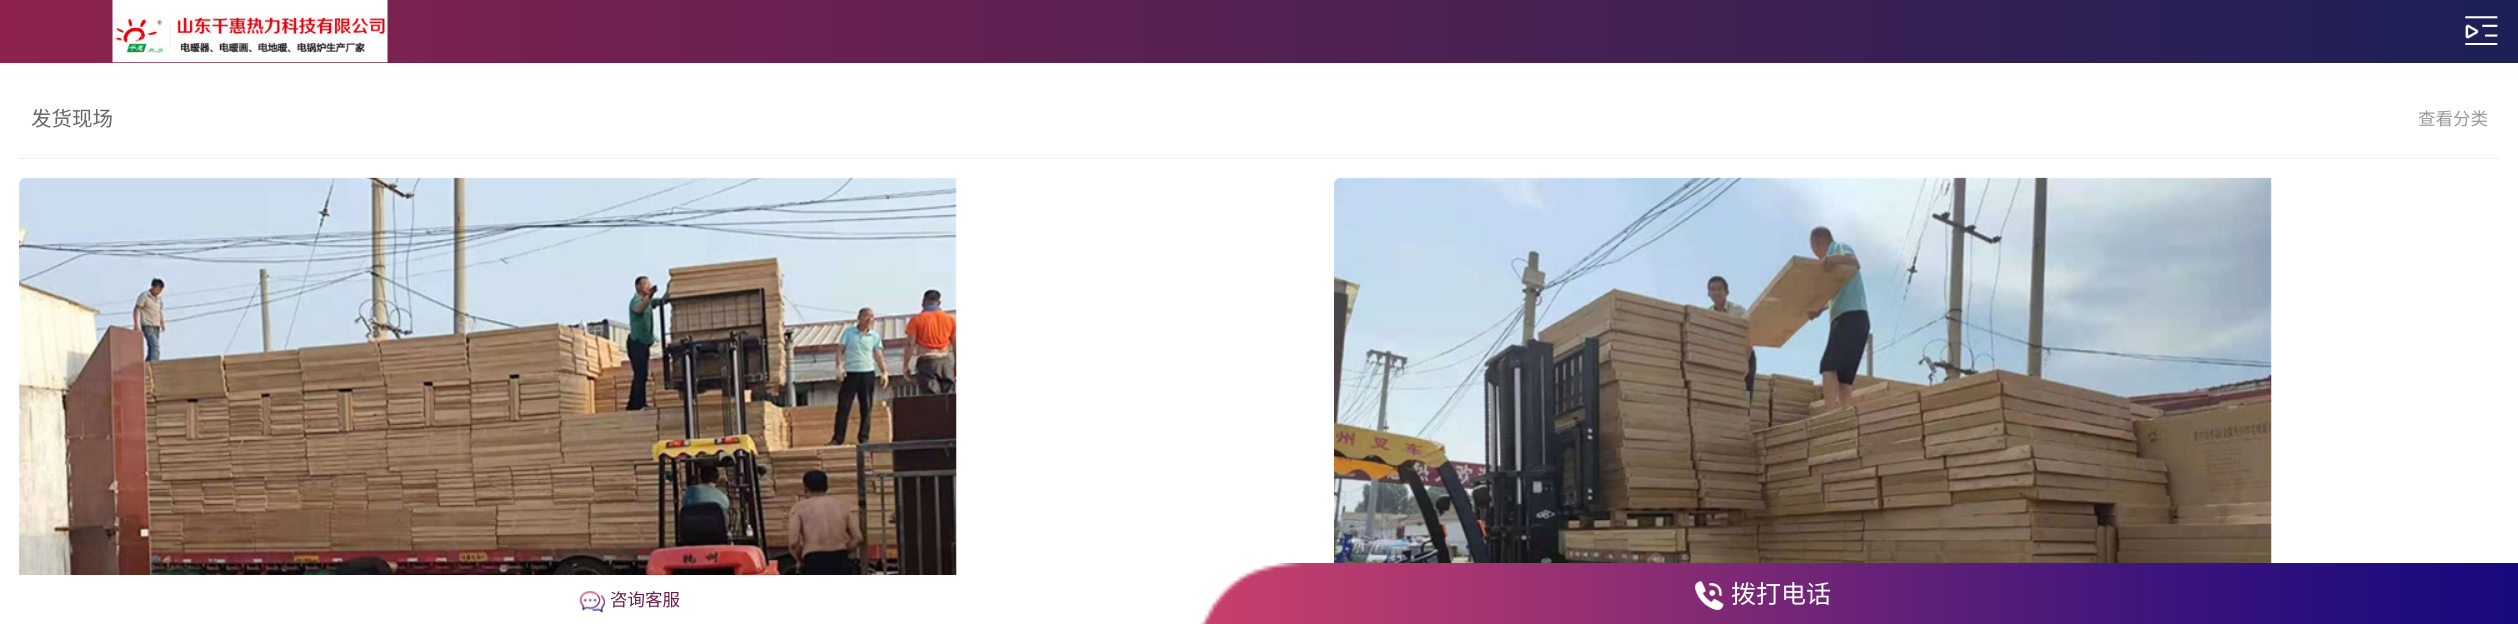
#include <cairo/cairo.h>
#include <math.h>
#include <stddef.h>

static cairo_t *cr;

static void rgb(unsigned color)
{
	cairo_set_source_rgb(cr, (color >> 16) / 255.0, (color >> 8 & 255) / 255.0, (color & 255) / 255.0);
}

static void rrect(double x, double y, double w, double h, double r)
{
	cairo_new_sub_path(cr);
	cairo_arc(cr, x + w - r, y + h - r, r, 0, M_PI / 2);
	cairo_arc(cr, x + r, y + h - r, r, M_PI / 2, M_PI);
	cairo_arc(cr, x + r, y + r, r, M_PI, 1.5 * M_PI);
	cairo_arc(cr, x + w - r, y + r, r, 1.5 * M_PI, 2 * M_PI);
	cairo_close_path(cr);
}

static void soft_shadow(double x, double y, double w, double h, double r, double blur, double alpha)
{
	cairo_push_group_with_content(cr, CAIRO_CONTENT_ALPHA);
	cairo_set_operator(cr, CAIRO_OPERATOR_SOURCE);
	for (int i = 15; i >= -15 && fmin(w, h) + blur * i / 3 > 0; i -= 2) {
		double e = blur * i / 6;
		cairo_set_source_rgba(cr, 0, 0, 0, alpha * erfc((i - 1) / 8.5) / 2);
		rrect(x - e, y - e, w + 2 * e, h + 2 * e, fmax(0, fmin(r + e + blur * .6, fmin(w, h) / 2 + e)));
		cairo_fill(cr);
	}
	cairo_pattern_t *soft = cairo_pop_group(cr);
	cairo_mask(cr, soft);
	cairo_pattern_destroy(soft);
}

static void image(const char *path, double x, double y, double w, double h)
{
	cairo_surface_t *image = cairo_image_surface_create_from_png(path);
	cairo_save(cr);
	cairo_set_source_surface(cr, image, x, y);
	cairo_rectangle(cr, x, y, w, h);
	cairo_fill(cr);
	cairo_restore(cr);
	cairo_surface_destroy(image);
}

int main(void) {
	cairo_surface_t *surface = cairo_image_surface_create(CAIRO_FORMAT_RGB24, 2518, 624);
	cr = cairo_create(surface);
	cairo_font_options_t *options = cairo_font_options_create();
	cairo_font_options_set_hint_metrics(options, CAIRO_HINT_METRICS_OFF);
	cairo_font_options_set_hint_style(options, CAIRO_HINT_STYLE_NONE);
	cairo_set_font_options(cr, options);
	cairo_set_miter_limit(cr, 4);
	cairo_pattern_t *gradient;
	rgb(0xffffff);
	cairo_paint(cr);
	gradient = cairo_pattern_create_linear(0, 31, 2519, 31);
	cairo_pattern_add_color_stop_rgba(gradient, 0, 0.553, 0.133, 0.306, 1);
	cairo_pattern_add_color_stop_rgba(gradient, 1, 0.106, 0.125, 0.341, 1);
	cairo_set_source(cr, gradient);
	cairo_pattern_destroy(gradient);
	cairo_rectangle(cr, 0, 0, 2518, 63);
	cairo_fill(cr);
	cairo_save(cr);
	cairo_set_fill_rule(cr, CAIRO_FILL_RULE_EVEN_ODD);
	cairo_new_path(cr);
	cairo_move_to(cr, 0, 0);
	cairo_line_to(cr, 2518, 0);
	cairo_line_to(cr, 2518, 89);
	cairo_line_to(cr, 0, 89);
	cairo_close_path(cr);
	cairo_move_to(cr, 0, 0);
	cairo_line_to(cr, 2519, 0);
	cairo_line_to(cr, 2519, 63);
	cairo_line_to(cr, 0, 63);
	cairo_close_path(cr);
	cairo_clip(cr);
	rgb(0x000000);
	soft_shadow(0, 3, 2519, 62, 0, 7.5, 0.1);
	cairo_restore(cr);
	image("img/1.png", 112, 0, 276, 63);
	image("img/2.png", 2465, 16, 33, 29);
	rgb(0xffffff);
	cairo_rectangle(cr, 0, 63, 2518, 12);
	cairo_fill(cr);
	rgb(0xf0f0f0);
	cairo_rectangle(cr, 19, 158, 2481, 1);
	cairo_fill(cr);
	image("img/3.png", 19, 177, 938, 398);
	image("img/4.png", 1334, 177, 938, 386);
	image("img/5.png", 579, 590, 26, 23);
	image("img/6.png", 1200, 563, 1318, 61);
	image("img/7.png", 1695, 580, 29, 30);
	cairo_select_font_face(cr, "Noto Sans CJK SC", CAIRO_FONT_SLANT_NORMAL, CAIRO_FONT_WEIGHT_NORMAL);
	cairo_set_font_size(cr, 20.5);
	rgb(0x666666);
	cairo_move_to(cr, 31, 126);
	cairo_show_text(cr, "发货现场");
	cairo_set_font_size(cr, 17.5);
	rgb(0x999999);
	cairo_move_to(cr, 2418, 125);
	cairo_show_text(cr, "查看分类");
	rgb(0x642151);
	cairo_move_to(cr, 610, 606);
	cairo_show_text(cr, "咨询客服");
	cairo_set_font_size(cr, 25);
	rgb(0xffffff);
	cairo_move_to(cr, 1731, 603);
	cairo_show_text(cr, "拨打电话");
	cairo_surface_write_to_png(surface, "page.png");
	cairo_font_options_destroy(options);
	cairo_destroy(cr);
	cairo_surface_destroy(surface);
	return 0;
}
